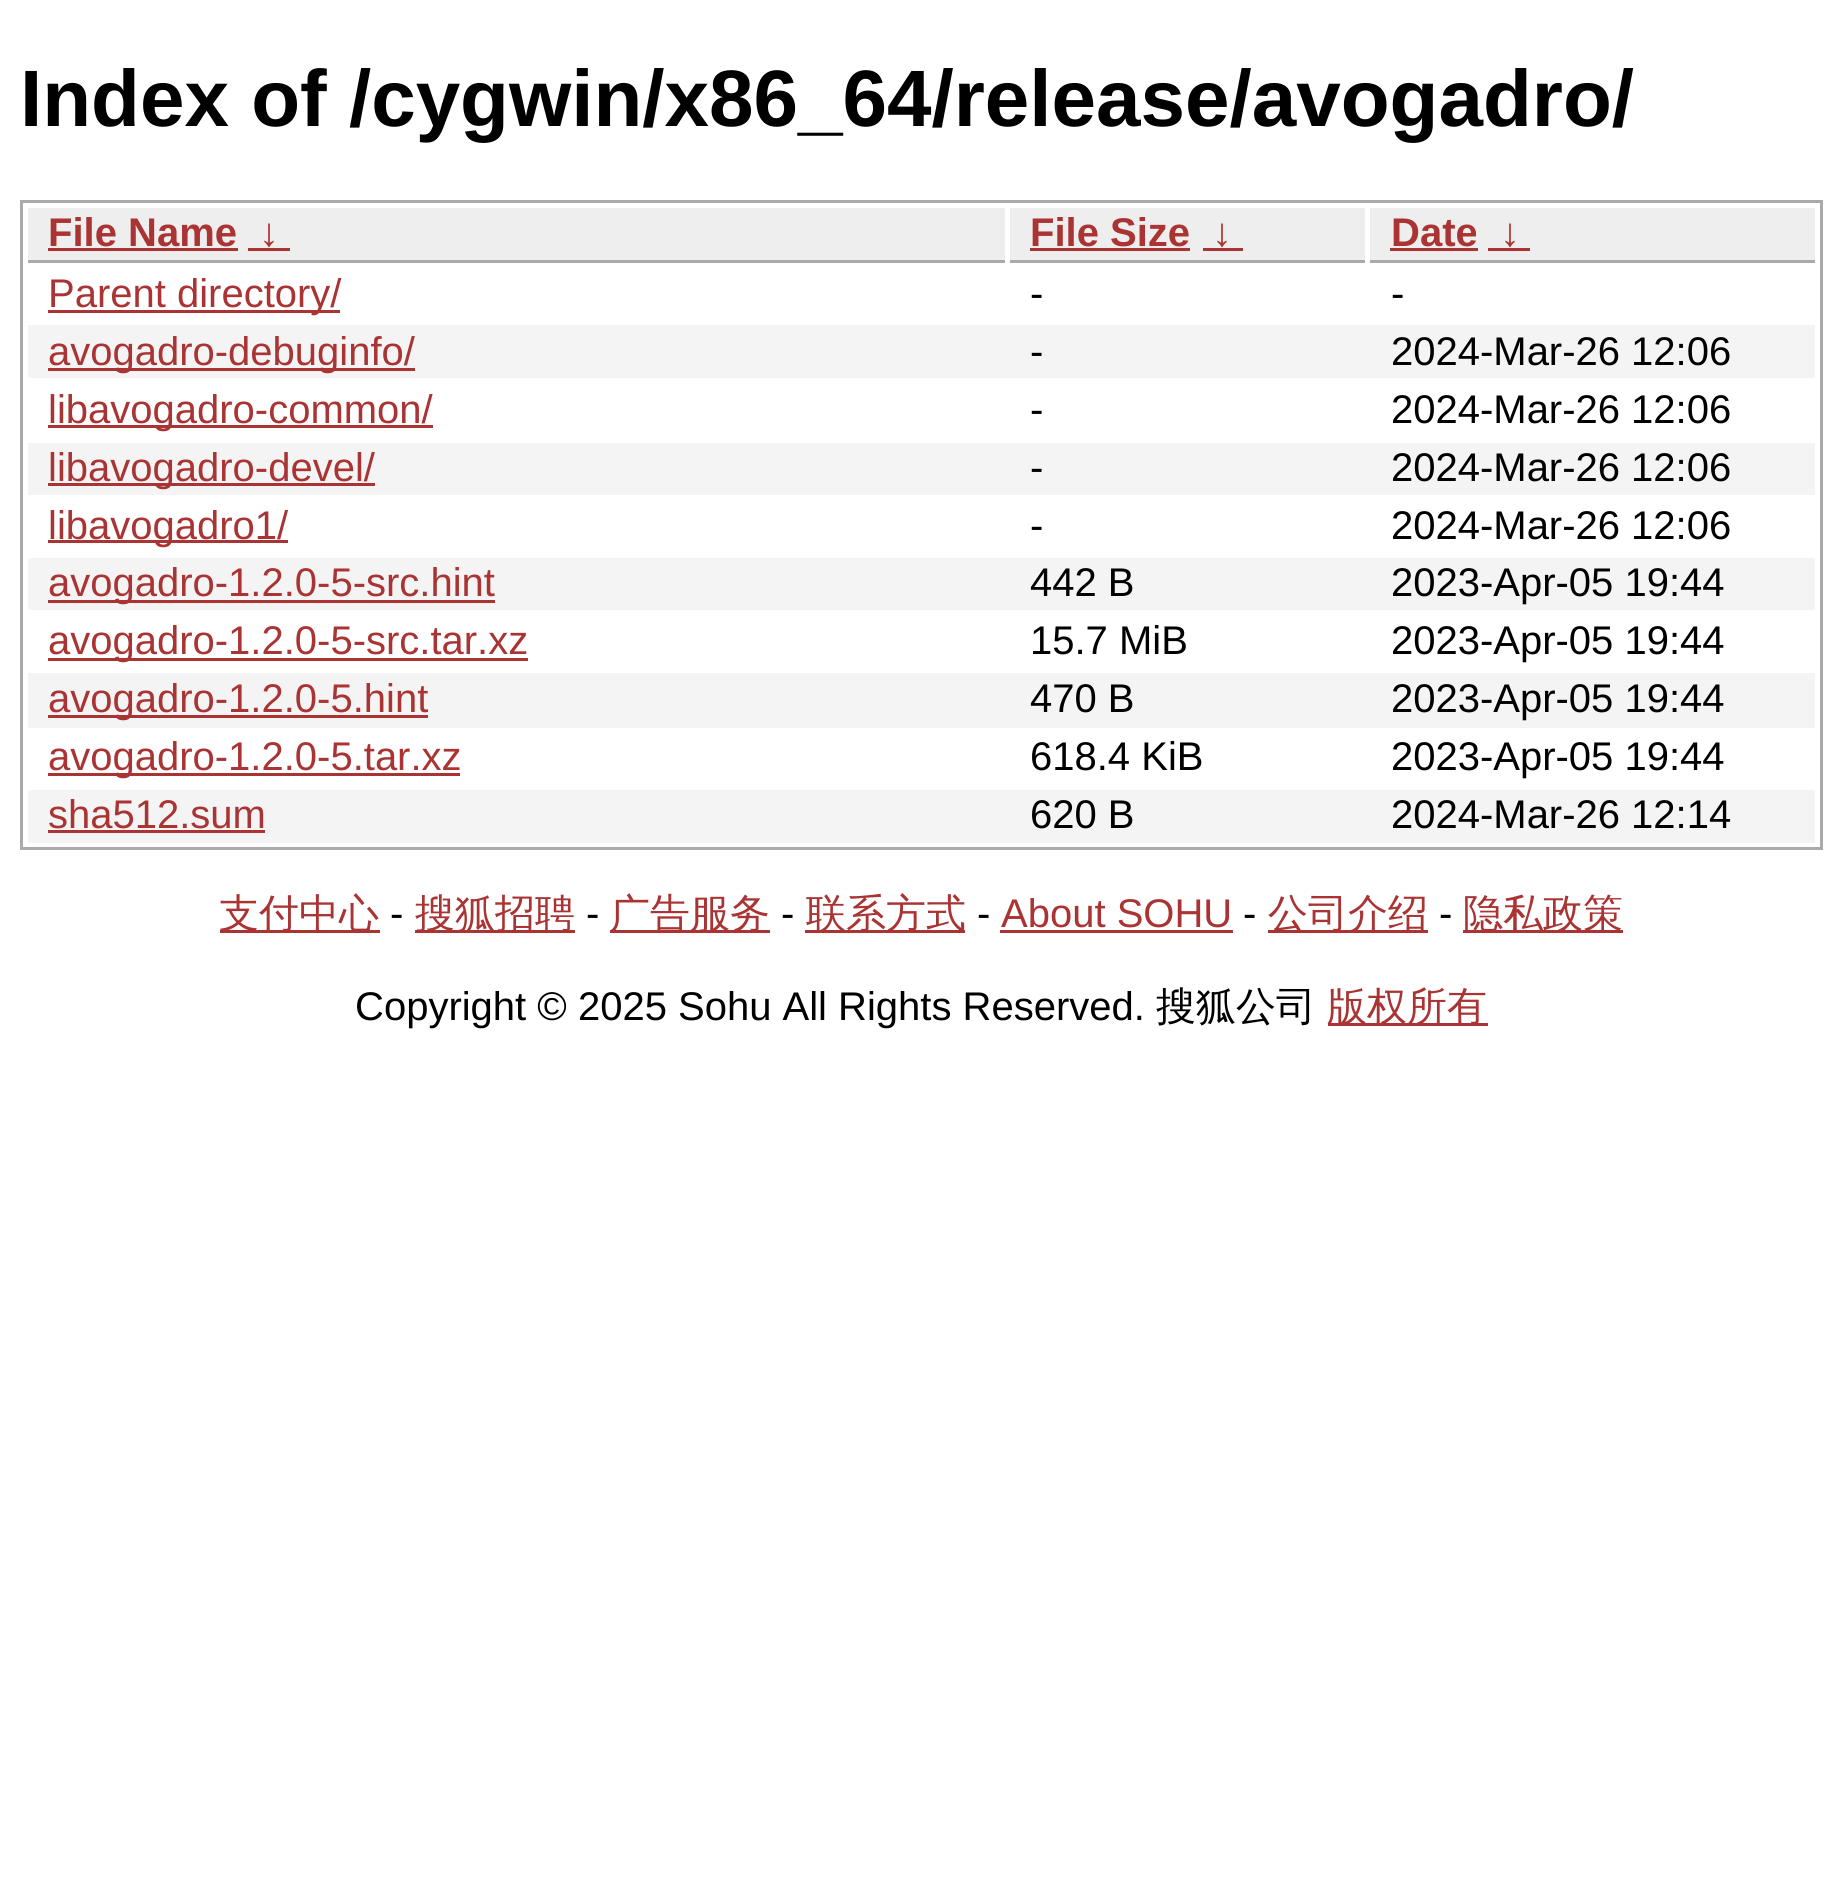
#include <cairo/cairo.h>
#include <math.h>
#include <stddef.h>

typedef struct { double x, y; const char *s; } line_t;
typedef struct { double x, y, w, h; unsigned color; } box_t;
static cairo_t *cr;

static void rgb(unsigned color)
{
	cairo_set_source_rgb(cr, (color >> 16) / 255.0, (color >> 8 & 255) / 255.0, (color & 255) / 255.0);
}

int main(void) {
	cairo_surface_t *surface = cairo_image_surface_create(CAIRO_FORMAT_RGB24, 1841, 1885);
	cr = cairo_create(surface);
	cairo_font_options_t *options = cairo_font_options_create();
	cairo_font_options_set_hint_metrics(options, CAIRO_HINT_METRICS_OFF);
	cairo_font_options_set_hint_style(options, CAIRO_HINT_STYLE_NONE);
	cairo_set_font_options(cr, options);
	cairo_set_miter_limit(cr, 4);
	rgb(0xffffff);
	cairo_paint(cr);
	cairo_rectangle(cr, 21.5, 201.5, 1800, 647);
	rgb(0xaaaaaa);
	cairo_set_line_width(cr, 3);
	cairo_stroke(cr);
	{
		static const box_t items[] = {
			{28, 208, 977, 52, 0xeeeeee},
			{28, 260, 977, 3, 0xaaaaaa},
			{48, 248, 190, 3, 0xaa3333},
			{248, 248, 42, 3, 0xaa3333},
			{1010, 208, 355, 52, 0xeeeeee},
			{1010, 260, 355, 3, 0xaaaaaa},
			{1030, 248, 160, 3, 0xaa3333},
			{1203, 248, 40, 3, 0xaa3333},
			{1370, 208, 445, 52, 0xeeeeee},
			{1370, 260, 445, 3, 0xaaaaaa},
			{1390, 248, 88, 3, 0xaa3333},
			{1488, 248, 42, 3, 0xaa3333},
			{48, 310, 292, 3, 0xaa3333},
			{28, 325, 1787, 53, 0xf4f4f4},
			{48, 368, 367, 3, 0xaa3333},
			{48, 425, 385, 3, 0xaa3333},
			{28, 443, 1787, 52, 0xf4f4f4},
			{48, 483, 327, 3, 0xaa3333},
			{48, 540, 240, 3, 0xaa3333},
			{28, 558, 1787, 52, 0xf4f4f4},
			{48, 600, 447, 3, 0xaa3333},
			{48, 658, 480, 3, 0xaa3333},
			{28, 673, 1787, 55, 0xf4f4f4},
			{48, 715, 380, 3, 0xaa3333},
			{48, 773, 412, 3, 0xaa3333},
			{28, 790, 1787, 53, 0xf4f4f4},
			{48, 830, 217, 3, 0xaa3333},
			{220, 930, 160, 3, 0xaa3333},
			{415, 930, 160, 3, 0xaa3333},
			{610, 930, 160, 3, 0xaa3333},
			{805, 930, 160, 3, 0xaa3333},
			{1000, 930, 233, 3, 0xaa3333},
			{1268, 930, 160, 3, 0xaa3333},
			{1463, 930, 160, 3, 0xaa3333},
			{1328, 1023, 160, 3, 0xaa3333},
		};
		for (size_t i = 0; i < sizeof items / sizeof *items; i++) {
			rgb(items[i].color);
			cairo_rectangle(cr, items[i].x, items[i].y, items[i].w, items[i].h);
			cairo_fill(cr);
		}
	}
	cairo_select_font_face(cr, "Liberation Sans", CAIRO_FONT_SLANT_NORMAL, CAIRO_FONT_WEIGHT_BOLD);
	cairo_set_font_size(cr, 80);
	rgb(0x000000);
	cairo_move_to(cr, 20, 126);
	cairo_show_text(cr, "Index of /cygwin/x86_64/release/avogadro/");
	cairo_set_font_size(cr, 40);
	rgb(0xaa3333);
	{
		static const line_t items[] = {
			{48, 246, "File Name"},
			{259, 246, "↓"},
			{1030, 246, "File Size"},
			{1212, 246, "↓"},
			{1391, 246, "Date"},
			{1500, 246, "↓"},
		};
		for (size_t i = 0; i < sizeof items / sizeof *items; i++) {
			cairo_move_to(cr, items[i].x, items[i].y);
			cairo_show_text(cr, items[i].s);
		}
	}
	cairo_select_font_face(cr, "Liberation Sans", CAIRO_FONT_SLANT_NORMAL, CAIRO_FONT_WEIGHT_NORMAL);
	cairo_move_to(cr, 48, 307);
	cairo_show_text(cr, "Parent directory/");
	rgb(0x000000);
	cairo_move_to(cr, 1030, 307);
	cairo_show_text(cr, "-");
	cairo_move_to(cr, 1391, 307);
	cairo_show_text(cr, "-");
	rgb(0xaa3333);
	cairo_move_to(cr, 48, 365);
	cairo_show_text(cr, "avogadro-debuginfo/");
	rgb(0x000000);
	cairo_move_to(cr, 1030, 365);
	cairo_show_text(cr, "-");
	cairo_move_to(cr, 1391, 365);
	cairo_show_text(cr, "2024-Mar-26 12:06");
	rgb(0xaa3333);
	cairo_move_to(cr, 48, 423);
	cairo_show_text(cr, "libavogadro-common/");
	rgb(0x000000);
	cairo_move_to(cr, 1030, 423);
	cairo_show_text(cr, "-");
	cairo_move_to(cr, 1391, 423);
	cairo_show_text(cr, "2024-Mar-26 12:06");
	rgb(0xaa3333);
	cairo_move_to(cr, 48, 481);
	cairo_show_text(cr, "libavogadro-devel/");
	rgb(0x000000);
	cairo_move_to(cr, 1030, 481);
	cairo_show_text(cr, "-");
	cairo_move_to(cr, 1391, 481);
	cairo_show_text(cr, "2024-Mar-26 12:06");
	rgb(0xaa3333);
	cairo_move_to(cr, 48, 539);
	cairo_show_text(cr, "libavogadro1/");
	rgb(0x000000);
	cairo_move_to(cr, 1030, 539);
	cairo_show_text(cr, "-");
	cairo_move_to(cr, 1391, 539);
	cairo_show_text(cr, "2024-Mar-26 12:06");
	rgb(0xaa3333);
	cairo_move_to(cr, 48, 596);
	cairo_show_text(cr, "avogadro-1.2.0-5-src.hint");
	rgb(0x000000);
	cairo_move_to(cr, 1030, 596);
	cairo_show_text(cr, "442 B");
	cairo_move_to(cr, 1391, 596);
	cairo_show_text(cr, "2023-Apr-05 19:44");
	rgb(0xaa3333);
	cairo_move_to(cr, 48, 654);
	cairo_show_text(cr, "avogadro-1.2.0-5-src.tar.xz");
	rgb(0x000000);
	cairo_move_to(cr, 1030, 654);
	cairo_show_text(cr, "15.7 MiB");
	cairo_move_to(cr, 1391, 654);
	cairo_show_text(cr, "2023-Apr-05 19:44");
	rgb(0xaa3333);
	cairo_move_to(cr, 48, 712);
	cairo_show_text(cr, "avogadro-1.2.0-5.hint");
	rgb(0x000000);
	cairo_move_to(cr, 1030, 712);
	cairo_show_text(cr, "470 B");
	cairo_move_to(cr, 1391, 712);
	cairo_show_text(cr, "2023-Apr-05 19:44");
	rgb(0xaa3333);
	cairo_move_to(cr, 48, 770);
	cairo_show_text(cr, "avogadro-1.2.0-5.tar.xz");
	rgb(0x000000);
	cairo_move_to(cr, 1030, 770);
	cairo_show_text(cr, "618.4 KiB");
	cairo_move_to(cr, 1391, 770);
	cairo_show_text(cr, "2023-Apr-05 19:44");
	rgb(0xaa3333);
	cairo_move_to(cr, 48, 828);
	cairo_show_text(cr, "sha512.sum");
	rgb(0x000000);
	cairo_move_to(cr, 1030, 828);
	cairo_show_text(cr, "620 B");
	cairo_move_to(cr, 1391, 828);
	cairo_show_text(cr, "2024-Mar-26 12:14");
	cairo_select_font_face(cr, "WenQuanYi Zen Hei Medium", CAIRO_FONT_SLANT_NORMAL, CAIRO_FONT_WEIGHT_NORMAL);
	rgb(0xaa3333);
	cairo_move_to(cr, 219, 927);
	cairo_show_text(cr, "支付中心");
	cairo_select_font_face(cr, "Liberation Sans", CAIRO_FONT_SLANT_NORMAL, CAIRO_FONT_WEIGHT_NORMAL);
	rgb(0x000000);
	cairo_move_to(cr, 390, 927);
	cairo_show_text(cr, "-");
	cairo_select_font_face(cr, "WenQuanYi Zen Hei Medium", CAIRO_FONT_SLANT_NORMAL, CAIRO_FONT_WEIGHT_NORMAL);
	rgb(0xaa3333);
	cairo_move_to(cr, 415, 927);
	cairo_show_text(cr, "搜狐招聘");
	cairo_select_font_face(cr, "Liberation Sans", CAIRO_FONT_SLANT_NORMAL, CAIRO_FONT_WEIGHT_NORMAL);
	rgb(0x000000);
	cairo_move_to(cr, 586, 927);
	cairo_show_text(cr, "-");
	cairo_select_font_face(cr, "WenQuanYi Zen Hei Medium", CAIRO_FONT_SLANT_NORMAL, CAIRO_FONT_WEIGHT_NORMAL);
	rgb(0xaa3333);
	cairo_move_to(cr, 610, 927);
	cairo_show_text(cr, "广告服务");
	cairo_select_font_face(cr, "Liberation Sans", CAIRO_FONT_SLANT_NORMAL, CAIRO_FONT_WEIGHT_NORMAL);
	rgb(0x000000);
	cairo_move_to(cr, 781, 927);
	cairo_show_text(cr, "-");
	cairo_select_font_face(cr, "WenQuanYi Zen Hei Medium", CAIRO_FONT_SLANT_NORMAL, CAIRO_FONT_WEIGHT_NORMAL);
	rgb(0xaa3333);
	cairo_move_to(cr, 806, 927);
	cairo_show_text(cr, "联系方式");
	cairo_select_font_face(cr, "Liberation Sans", CAIRO_FONT_SLANT_NORMAL, CAIRO_FONT_WEIGHT_NORMAL);
	rgb(0x000000);
	cairo_move_to(cr, 977, 927);
	cairo_show_text(cr, "-");
	rgb(0xaa3333);
	cairo_move_to(cr, 1001, 927);
	cairo_show_text(cr, "About SOHU");
	rgb(0x000000);
	cairo_move_to(cr, 1243, 927);
	cairo_show_text(cr, "-");
	cairo_select_font_face(cr, "WenQuanYi Zen Hei Medium", CAIRO_FONT_SLANT_NORMAL, CAIRO_FONT_WEIGHT_NORMAL);
	rgb(0xaa3333);
	cairo_move_to(cr, 1268, 927);
	cairo_show_text(cr, "公司介绍");
	cairo_select_font_face(cr, "Liberation Sans", CAIRO_FONT_SLANT_NORMAL, CAIRO_FONT_WEIGHT_NORMAL);
	rgb(0x000000);
	cairo_move_to(cr, 1439, 927);
	cairo_show_text(cr, "-");
	cairo_select_font_face(cr, "WenQuanYi Zen Hei Medium", CAIRO_FONT_SLANT_NORMAL, CAIRO_FONT_WEIGHT_NORMAL);
	rgb(0xaa3333);
	cairo_move_to(cr, 1463, 927);
	cairo_show_text(cr, "隐私政策");
	cairo_select_font_face(cr, "Liberation Sans", CAIRO_FONT_SLANT_NORMAL, CAIRO_FONT_WEIGHT_NORMAL);
	rgb(0x000000);
	cairo_move_to(cr, 355, 1020);
	cairo_show_text(cr, "Copyright © 2025 Sohu All Rights Reserved.");
	cairo_select_font_face(cr, "WenQuanYi Zen Hei Medium", CAIRO_FONT_SLANT_NORMAL, CAIRO_FONT_WEIGHT_NORMAL);
	cairo_move_to(cr, 1156, 1020);
	cairo_show_text(cr, "搜狐公司");
	rgb(0xaa3333);
	cairo_move_to(cr, 1327, 1020);
	cairo_show_text(cr, "版权所有");
	cairo_surface_write_to_png(surface, "page.png");
	cairo_font_options_destroy(options);
	cairo_destroy(cr);
	cairo_surface_destroy(surface);
	return 0;
}
